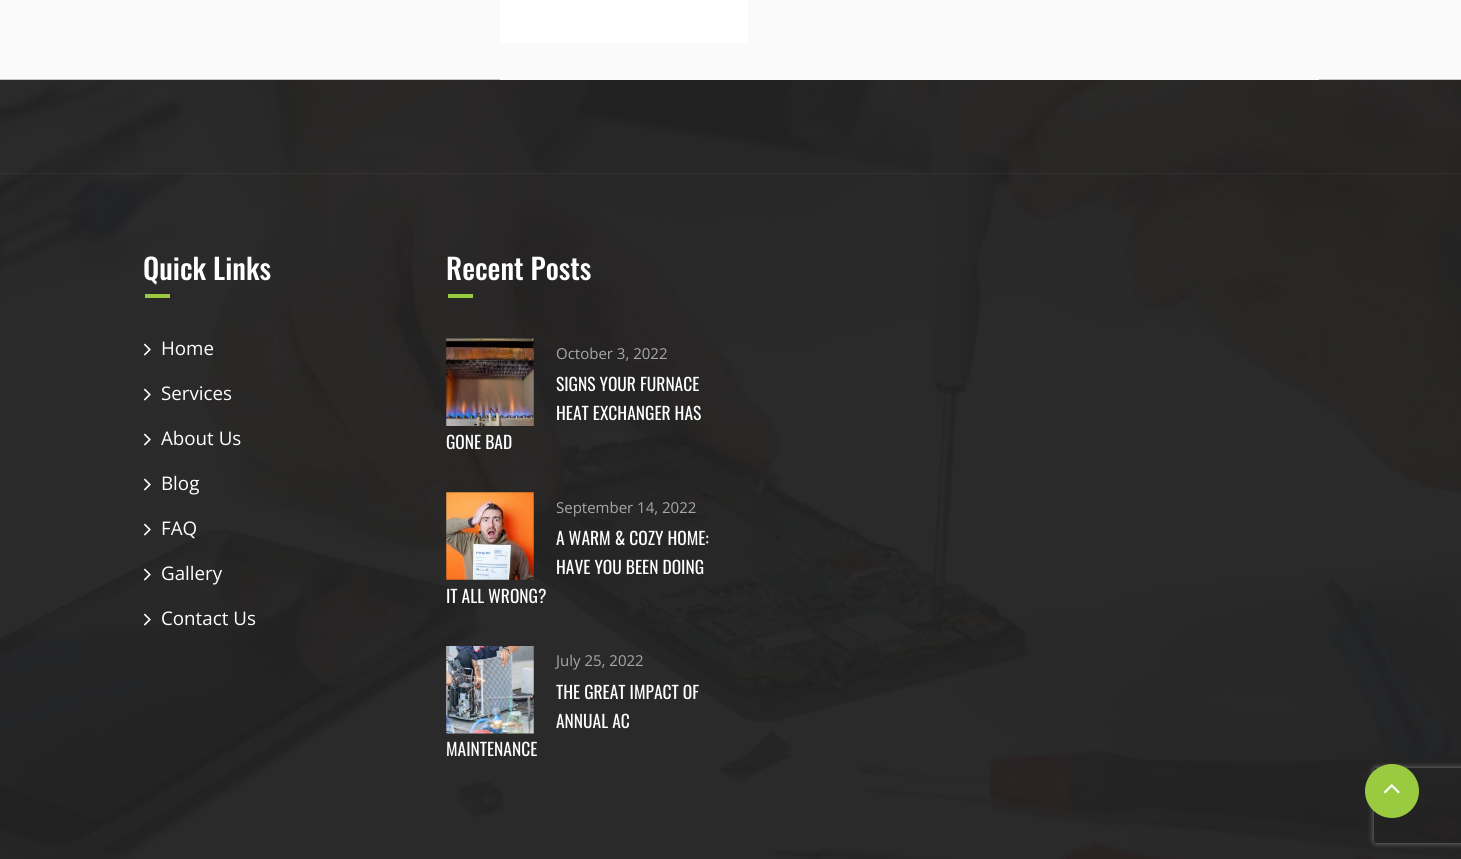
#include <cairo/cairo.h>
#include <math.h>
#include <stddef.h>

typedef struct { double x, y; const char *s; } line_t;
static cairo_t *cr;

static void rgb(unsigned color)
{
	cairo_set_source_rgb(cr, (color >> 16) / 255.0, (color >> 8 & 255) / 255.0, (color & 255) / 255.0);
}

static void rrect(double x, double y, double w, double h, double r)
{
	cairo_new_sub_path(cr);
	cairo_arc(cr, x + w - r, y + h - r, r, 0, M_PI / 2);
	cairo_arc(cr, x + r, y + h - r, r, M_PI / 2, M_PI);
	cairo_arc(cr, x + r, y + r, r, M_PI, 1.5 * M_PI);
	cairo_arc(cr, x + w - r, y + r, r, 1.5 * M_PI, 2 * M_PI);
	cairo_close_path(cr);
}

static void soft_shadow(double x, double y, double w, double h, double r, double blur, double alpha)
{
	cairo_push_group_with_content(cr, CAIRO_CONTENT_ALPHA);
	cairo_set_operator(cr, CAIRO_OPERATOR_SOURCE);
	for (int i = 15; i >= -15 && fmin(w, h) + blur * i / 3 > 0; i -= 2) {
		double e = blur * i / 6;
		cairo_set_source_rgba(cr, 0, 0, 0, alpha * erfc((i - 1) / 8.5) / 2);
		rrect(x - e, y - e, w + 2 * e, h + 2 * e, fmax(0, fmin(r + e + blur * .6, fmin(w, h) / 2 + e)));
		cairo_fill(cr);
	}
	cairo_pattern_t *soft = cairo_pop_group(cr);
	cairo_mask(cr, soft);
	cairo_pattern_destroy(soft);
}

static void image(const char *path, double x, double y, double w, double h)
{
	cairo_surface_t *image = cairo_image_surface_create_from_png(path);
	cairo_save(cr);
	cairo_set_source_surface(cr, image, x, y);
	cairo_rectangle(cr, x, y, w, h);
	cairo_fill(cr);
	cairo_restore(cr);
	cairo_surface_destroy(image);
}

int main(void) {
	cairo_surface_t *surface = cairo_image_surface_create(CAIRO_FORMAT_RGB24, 1461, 859);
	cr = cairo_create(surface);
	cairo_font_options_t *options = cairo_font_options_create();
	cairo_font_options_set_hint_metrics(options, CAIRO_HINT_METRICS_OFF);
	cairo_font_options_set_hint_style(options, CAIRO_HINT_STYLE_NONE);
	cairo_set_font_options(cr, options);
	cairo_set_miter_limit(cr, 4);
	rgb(0xfafafa);
	cairo_paint(cr);
	image("img/1.png", 0, 79, 1461, 780);
	rgb(0xfafafa);
	cairo_rectangle(cr, 500, 79, 819, 1);
	cairo_fill(cr);
	rgb(0xffffff);
	cairo_rectangle(cr, 500, 0, 248, 43);
	cairo_fill(cr);
	cairo_set_source_rgba(cr, 1, 1, 1, 0.05);
	cairo_rectangle(cr, 0, 173, 1461, 1);
	cairo_fill(cr);
	rgb(0x9aca40);
	cairo_rectangle(cr, 145, 294, 25, 4);
	cairo_fill(cr);
	image("img/2.png", 143, 343, 8, 13);
	image("img/2.png", 143, 388, 8, 13);
	image("img/3.png", 143, 433, 8, 13);
	image("img/2.png", 143, 478, 8, 13);
	image("img/2.png", 143, 523, 8, 13);
	image("img/4.png", 143, 568, 8, 13);
	image("img/5.png", 143, 613, 8, 13);
	cairo_rectangle(cr, 448, 294, 25, 4);
	cairo_fill(cr);
	image("img/6.png", 446, 338, 88, 88);
	image("img/7.png", 446, 492, 88, 88);
	image("img/8.png", 446, 646, 88, 88);
	cairo_save(cr);
	cairo_set_fill_rule(cr, CAIRO_FILL_RULE_EVEN_ODD);
	cairo_new_path(cr);
	cairo_move_to(cr, 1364, 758);
	cairo_line_to(cr, 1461, 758);
	cairo_line_to(cr, 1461, 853);
	cairo_line_to(cr, 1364, 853);
	cairo_close_path(cr);
	cairo_move_to(cr, 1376.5, 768);
	cairo_line_to(cr, 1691.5, 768);
	cairo_curve_to(cr, 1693, 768, 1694, 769, 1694, 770.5);
	cairo_line_to(cr, 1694, 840.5);
	cairo_curve_to(cr, 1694, 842, 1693, 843, 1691.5, 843);
	cairo_line_to(cr, 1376.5, 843);
	cairo_curve_to(cr, 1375, 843, 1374, 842, 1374, 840.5);
	cairo_line_to(cr, 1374, 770.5);
	cairo_curve_to(cr, 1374, 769, 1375, 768, 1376.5, 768);
	cairo_close_path(cr);
	cairo_clip(cr);
	rgb(0x808080);
	soft_shadow(1374, 768, 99, 75, 2.5, 3, 1);
	cairo_restore(cr);
	cairo_arc(cr, 1392, 791, 27, 0, 2 * M_PI);
	cairo_fill(cr);
	image("img/9.png", 1383, 784, 17, 10);
	cairo_select_font_face(cr, "Oswald Medium", CAIRO_FONT_SLANT_NORMAL, CAIRO_FONT_WEIGHT_NORMAL);
	cairo_set_font_size(cr, 28.75);
	rgb(0xffffff);
	cairo_move_to(cr, 143, 280);
	cairo_show_text(cr, "Quick Links");
	cairo_select_font_face(cr, "Open Sans", CAIRO_FONT_SLANT_NORMAL, CAIRO_FONT_WEIGHT_NORMAL);
	cairo_set_font_size(cr, 18.75);
	{
		static const line_t items[] = {
			{161, 355, "Home"},
			{161, 400, "Services"},
			{161, 445, "About Us"},
			{161, 490, "Blog"},
			{161, 535, "FAQ"},
			{161, 580, "Gallery"},
			{161, 625, "Contact Us"},
		};
		for (size_t i = 0; i < sizeof items / sizeof *items; i++) {
			cairo_move_to(cr, items[i].x, items[i].y);
			cairo_show_text(cr, items[i].s);
		}
	}
	cairo_select_font_face(cr, "Oswald Medium", CAIRO_FONT_SLANT_NORMAL, CAIRO_FONT_WEIGHT_NORMAL);
	cairo_set_font_size(cr, 28.75);
	cairo_move_to(cr, 446, 280);
	cairo_show_text(cr, "Recent Posts");
	cairo_select_font_face(cr, "Open Sans", CAIRO_FONT_SLANT_NORMAL, CAIRO_FONT_WEIGHT_NORMAL);
	cairo_set_font_size(cr, 15);
	rgb(0xa8a7a8);
	cairo_move_to(cr, 556, 359);
	cairo_show_text(cr, "October 3, 2022");
	cairo_select_font_face(cr, "Oswald", CAIRO_FONT_SLANT_NORMAL, CAIRO_FONT_WEIGHT_NORMAL);
	cairo_set_font_size(cr, 17.5);
	rgb(0xffffff);
	{
		static const line_t items[] = {
			{556, 391, "SIGNS YOUR FURNACE"},
			{556, 420, "HEAT EXCHANGER HAS"},
			{446, 449, "GONE BAD"},
		};
		for (size_t i = 0; i < sizeof items / sizeof *items; i++) {
			cairo_move_to(cr, items[i].x, items[i].y);
			cairo_show_text(cr, items[i].s);
		}
	}
	cairo_select_font_face(cr, "Open Sans", CAIRO_FONT_SLANT_NORMAL, CAIRO_FONT_WEIGHT_NORMAL);
	cairo_set_font_size(cr, 15);
	rgb(0xa8a7a8);
	cairo_move_to(cr, 556, 513);
	cairo_show_text(cr, "September 14, 2022");
	cairo_select_font_face(cr, "Oswald", CAIRO_FONT_SLANT_NORMAL, CAIRO_FONT_WEIGHT_NORMAL);
	cairo_set_font_size(cr, 17.5);
	rgb(0xffffff);
	{
		static const line_t items[] = {
			{556, 545, "A WARM & COZY HOME:"},
			{556, 574, "HAVE YOU BEEN DOING"},
			{446, 603, "IT ALL WRONG?"},
		};
		for (size_t i = 0; i < sizeof items / sizeof *items; i++) {
			cairo_move_to(cr, items[i].x, items[i].y);
			cairo_show_text(cr, items[i].s);
		}
	}
	cairo_select_font_face(cr, "Open Sans", CAIRO_FONT_SLANT_NORMAL, CAIRO_FONT_WEIGHT_NORMAL);
	cairo_set_font_size(cr, 15);
	rgb(0xa8a7a8);
	cairo_move_to(cr, 556, 666);
	cairo_show_text(cr, "July 25, 2022");
	cairo_select_font_face(cr, "Oswald", CAIRO_FONT_SLANT_NORMAL, CAIRO_FONT_WEIGHT_NORMAL);
	cairo_set_font_size(cr, 17.5);
	rgb(0xffffff);
	{
		static const line_t items[] = {
			{556, 699, "THE GREAT IMPACT OF"},
			{556, 728, "ANNUAL AC"},
			{446, 756, "MAINTENANCE"},
		};
		for (size_t i = 0; i < sizeof items / sizeof *items; i++) {
			cairo_move_to(cr, items[i].x, items[i].y);
			cairo_show_text(cr, items[i].s);
		}
	}
	cairo_surface_write_to_png(surface, "page.png");
	cairo_font_options_destroy(options);
	cairo_destroy(cr);
	cairo_surface_destroy(surface);
	return 0;
}
